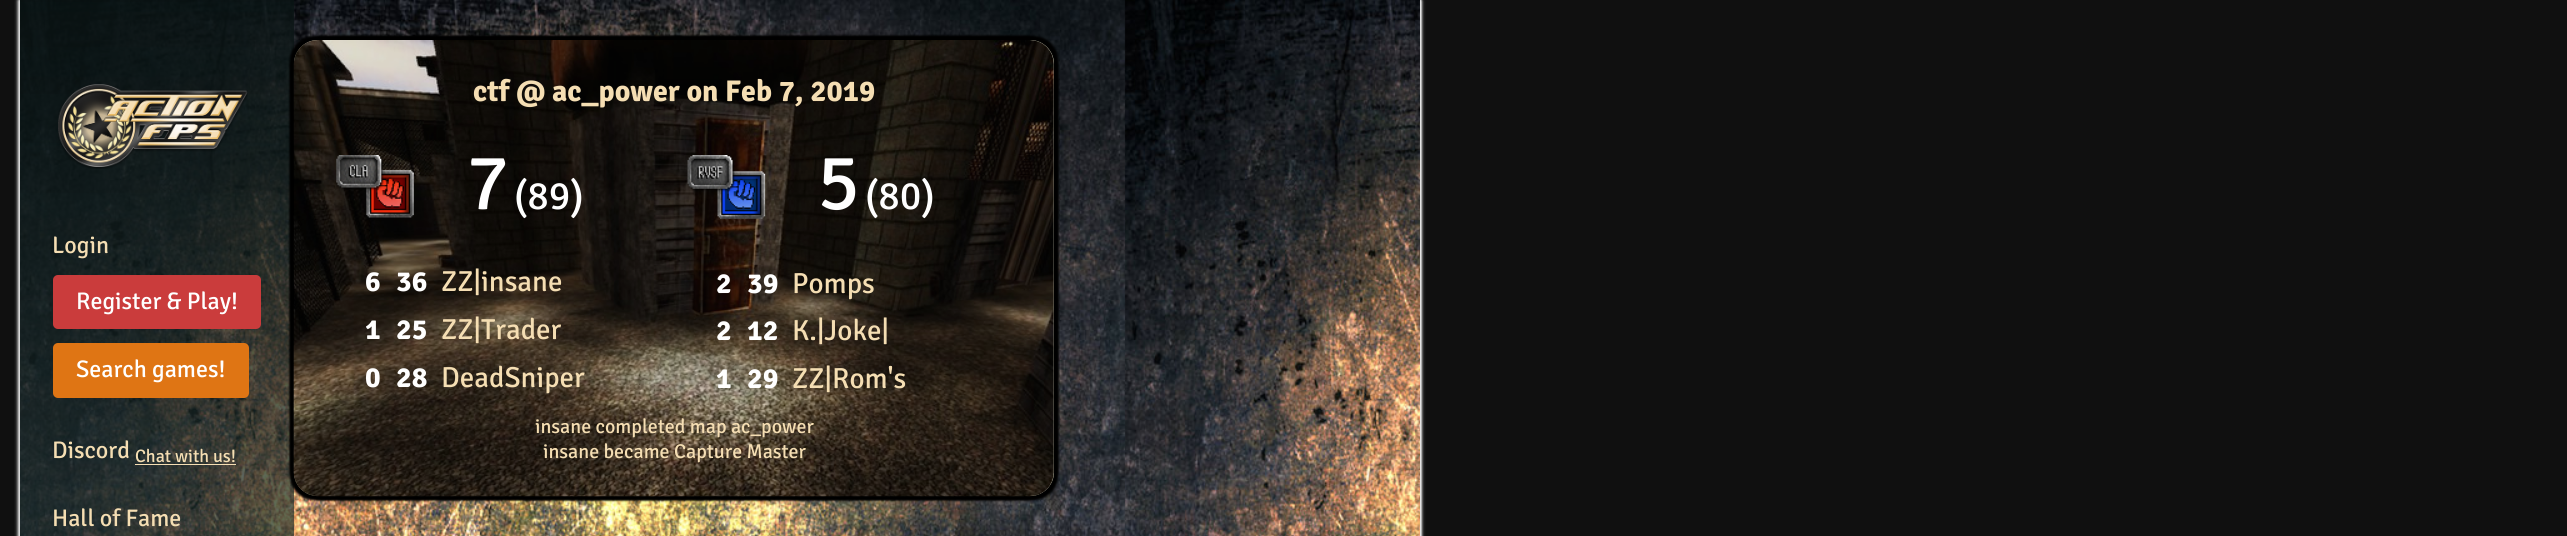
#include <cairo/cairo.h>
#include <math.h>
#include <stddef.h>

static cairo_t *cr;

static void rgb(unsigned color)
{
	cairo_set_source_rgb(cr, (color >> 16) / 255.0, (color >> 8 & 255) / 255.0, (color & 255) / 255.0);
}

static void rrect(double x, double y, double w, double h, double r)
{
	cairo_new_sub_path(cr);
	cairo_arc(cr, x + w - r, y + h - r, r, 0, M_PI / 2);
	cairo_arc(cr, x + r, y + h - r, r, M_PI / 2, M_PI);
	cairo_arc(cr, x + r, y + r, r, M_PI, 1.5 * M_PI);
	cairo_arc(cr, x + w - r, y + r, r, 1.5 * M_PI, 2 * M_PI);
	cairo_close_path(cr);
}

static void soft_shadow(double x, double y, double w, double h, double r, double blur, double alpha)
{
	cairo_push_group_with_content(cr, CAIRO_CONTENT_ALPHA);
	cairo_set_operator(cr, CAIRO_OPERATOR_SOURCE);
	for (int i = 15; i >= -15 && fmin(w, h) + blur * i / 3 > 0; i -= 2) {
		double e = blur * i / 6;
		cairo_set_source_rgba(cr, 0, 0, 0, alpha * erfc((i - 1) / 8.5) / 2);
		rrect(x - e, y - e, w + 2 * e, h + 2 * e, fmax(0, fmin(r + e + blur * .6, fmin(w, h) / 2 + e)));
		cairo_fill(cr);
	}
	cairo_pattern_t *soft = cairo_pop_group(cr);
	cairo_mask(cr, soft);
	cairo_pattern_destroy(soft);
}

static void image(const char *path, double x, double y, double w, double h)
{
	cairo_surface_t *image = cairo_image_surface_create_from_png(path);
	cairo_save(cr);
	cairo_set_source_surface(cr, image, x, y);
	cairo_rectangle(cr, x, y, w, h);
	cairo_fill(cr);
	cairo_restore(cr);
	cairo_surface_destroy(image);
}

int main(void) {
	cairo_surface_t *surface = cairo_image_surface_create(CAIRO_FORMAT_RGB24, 2567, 536);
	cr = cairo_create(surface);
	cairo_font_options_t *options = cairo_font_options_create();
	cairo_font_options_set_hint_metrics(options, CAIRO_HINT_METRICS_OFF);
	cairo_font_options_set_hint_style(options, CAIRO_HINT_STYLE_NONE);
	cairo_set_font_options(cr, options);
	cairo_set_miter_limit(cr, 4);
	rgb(0x101010);
	cairo_paint(cr);
	rgb(0xf5f5f5);
	soft_shadow(19, 1, 1400, 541, 0, 2, 1);
	soft_shadow(21, -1, 1400, 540, 0, 1, 1);
	soft_shadow(19, -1, 1400, 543, 0, 2, 1);
	soft_shadow(21, 1, 1400, 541, 0, 2, 1);
	image("img/1.png", 20, 0, 1400, 536);
	image("img/2.png", 58, 84, 190, 85);
	rgb(0xca3c3c);
	rrect(53, 275, 208, 54, 5);
	cairo_fill(cr);
	rgb(0xdf7514);
	rrect(53, 343, 196, 55, 5);
	cairo_fill(cr);
	rgb(0xf5deb3);
	cairo_rectangle(cr, 135, 464, 101, 1);
	cairo_fill(cr);
	rgb(0x000000);
	soft_shadow(290, 44, 760, 456, 24, 1, 1);
	soft_shadow(298, 36, 760, 457, 24, 1, 1);
	soft_shadow(290, 36, 760, 457, 24, 1, 1);
	soft_shadow(298, 44, 760, 456, 24, 1, 1);
	rgb(0xf5f5dc);
	rrect(294, 40, 760, 456, 24);
	cairo_fill(cr);
	image("img/3.png", 293, 40, 761, 457);
	cairo_set_source_rgba(cr, 0.078, 0.078, 0.078, 0.14);
	rrect(294, 40, 760, 456, 24);
	cairo_fill(cr);
	image("img/4.png", 336, 155, 78, 63);
	image("img/5.png", 687, 155, 79, 64);
	cairo_select_font_face(cr, "Signika", CAIRO_FONT_SLANT_NORMAL, CAIRO_FONT_WEIGHT_NORMAL);
	cairo_set_font_size(cr, 24);
	rgb(0xf5deb3);
	cairo_move_to(cr, 52, 253);
	cairo_show_text(cr, "Login");
	rgb(0xffffff);
	cairo_move_to(cr, 76, 309);
	cairo_show_text(cr, "Register & Play!");
	cairo_move_to(cr, 76, 377);
	cairo_show_text(cr, "Search games!");
	rgb(0xf5deb3);
	cairo_move_to(cr, 52, 458);
	cairo_show_text(cr, "Discord");
	cairo_set_font_size(cr, 18);
	cairo_move_to(cr, 135, 462);
	cairo_show_text(cr, "Chat with us!");
	cairo_set_font_size(cr, 24);
	cairo_move_to(cr, 52, 526);
	cairo_show_text(cr, "Hall of Fame");
	cairo_select_font_face(cr, "Signika", CAIRO_FONT_SLANT_NORMAL, CAIRO_FONT_WEIGHT_BOLD);
	cairo_set_font_size(cr, 30);
	cairo_move_to(cr, 473, 101);
	cairo_show_text(cr, "ctf @ ac_power on Feb 7, 2019");
	cairo_select_font_face(cr, "Signika", CAIRO_FONT_SLANT_NORMAL, CAIRO_FONT_WEIGHT_NORMAL);
	cairo_set_font_size(cr, 80);
	rgb(0xffffff);
	cairo_move_to(cr, 466, 209);
	cairo_show_text(cr, "7");
	cairo_set_font_size(cr, 40);
	cairo_move_to(cr, 514, 209);
	cairo_show_text(cr, "(89)");
	cairo_select_font_face(cr, "Signika", CAIRO_FONT_SLANT_NORMAL, CAIRO_FONT_WEIGHT_BOLD);
	cairo_set_font_size(cr, 29);
	cairo_move_to(cr, 365, 291);
	cairo_show_text(cr, "6");
	cairo_move_to(cr, 396, 291);
	cairo_show_text(cr, "36");
	cairo_select_font_face(cr, "Signika", CAIRO_FONT_SLANT_NORMAL, CAIRO_FONT_WEIGHT_NORMAL);
	rgb(0xf5deb3);
	cairo_move_to(cr, 441, 291);
	cairo_show_text(cr, "ZZ|insane");
	cairo_select_font_face(cr, "Signika", CAIRO_FONT_SLANT_NORMAL, CAIRO_FONT_WEIGHT_BOLD);
	rgb(0xffffff);
	cairo_move_to(cr, 365, 339);
	cairo_show_text(cr, "1");
	cairo_move_to(cr, 396, 339);
	cairo_show_text(cr, "25");
	cairo_select_font_face(cr, "Signika", CAIRO_FONT_SLANT_NORMAL, CAIRO_FONT_WEIGHT_NORMAL);
	rgb(0xf5deb3);
	cairo_move_to(cr, 441, 339);
	cairo_show_text(cr, "ZZ|Trader");
	cairo_select_font_face(cr, "Signika", CAIRO_FONT_SLANT_NORMAL, CAIRO_FONT_WEIGHT_BOLD);
	rgb(0xffffff);
	cairo_move_to(cr, 365, 387);
	cairo_show_text(cr, "0");
	cairo_move_to(cr, 396, 387);
	cairo_show_text(cr, "28");
	cairo_select_font_face(cr, "Signika", CAIRO_FONT_SLANT_NORMAL, CAIRO_FONT_WEIGHT_NORMAL);
	rgb(0xf5deb3);
	cairo_move_to(cr, 441, 387);
	cairo_show_text(cr, "DeadSniper");
	cairo_set_font_size(cr, 80);
	rgb(0xffffff);
	cairo_move_to(cr, 817, 209);
	cairo_show_text(cr, "5");
	cairo_set_font_size(cr, 40);
	cairo_move_to(cr, 865, 209);
	cairo_show_text(cr, "(80)");
	cairo_select_font_face(cr, "Signika", CAIRO_FONT_SLANT_NORMAL, CAIRO_FONT_WEIGHT_BOLD);
	cairo_set_font_size(cr, 29);
	cairo_move_to(cr, 716, 293);
	cairo_show_text(cr, "2");
	cairo_move_to(cr, 747, 293);
	cairo_show_text(cr, "39");
	cairo_select_font_face(cr, "Signika", CAIRO_FONT_SLANT_NORMAL, CAIRO_FONT_WEIGHT_NORMAL);
	rgb(0xf5deb3);
	cairo_move_to(cr, 792, 293);
	cairo_show_text(cr, "Pomps");
	cairo_select_font_face(cr, "Signika", CAIRO_FONT_SLANT_NORMAL, CAIRO_FONT_WEIGHT_BOLD);
	rgb(0xffffff);
	cairo_move_to(cr, 716, 340);
	cairo_show_text(cr, "2");
	cairo_move_to(cr, 747, 340);
	cairo_show_text(cr, "12");
	cairo_select_font_face(cr, "Signika", CAIRO_FONT_SLANT_NORMAL, CAIRO_FONT_WEIGHT_NORMAL);
	rgb(0xf5deb3);
	cairo_move_to(cr, 792, 340);
	cairo_show_text(cr, "K.|Joke|");
	cairo_select_font_face(cr, "Signika", CAIRO_FONT_SLANT_NORMAL, CAIRO_FONT_WEIGHT_BOLD);
	rgb(0xffffff);
	cairo_move_to(cr, 716, 388);
	cairo_show_text(cr, "1");
	cairo_move_to(cr, 747, 388);
	cairo_show_text(cr, "29");
	cairo_select_font_face(cr, "Signika", CAIRO_FONT_SLANT_NORMAL, CAIRO_FONT_WEIGHT_NORMAL);
	rgb(0xf5deb3);
	cairo_move_to(cr, 792, 388);
	cairo_show_text(cr, "ZZ|Rom's");
	cairo_set_font_size(cr, 20);
	cairo_move_to(cr, 535, 433);
	cairo_show_text(cr, "insane completed map ac_power");
	cairo_move_to(cr, 543, 458);
	cairo_show_text(cr, "insane became Capture Master");
	cairo_surface_write_to_png(surface, "page.png");
	cairo_font_options_destroy(options);
	cairo_destroy(cr);
	cairo_surface_destroy(surface);
	return 0;
}
